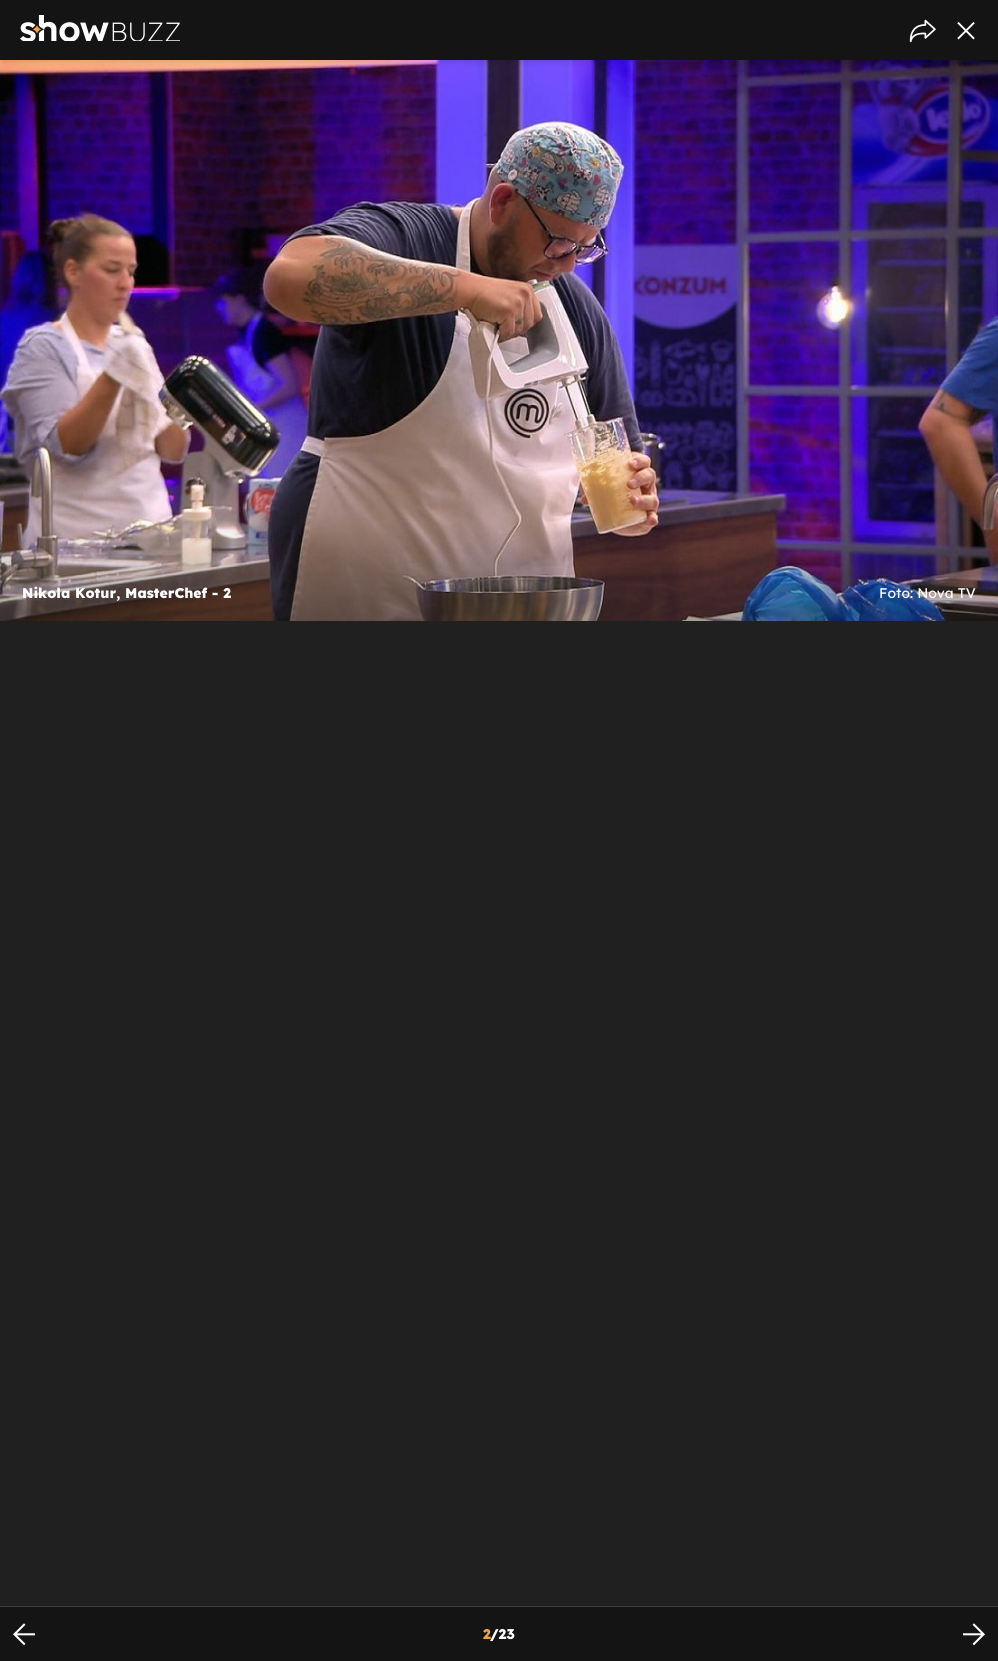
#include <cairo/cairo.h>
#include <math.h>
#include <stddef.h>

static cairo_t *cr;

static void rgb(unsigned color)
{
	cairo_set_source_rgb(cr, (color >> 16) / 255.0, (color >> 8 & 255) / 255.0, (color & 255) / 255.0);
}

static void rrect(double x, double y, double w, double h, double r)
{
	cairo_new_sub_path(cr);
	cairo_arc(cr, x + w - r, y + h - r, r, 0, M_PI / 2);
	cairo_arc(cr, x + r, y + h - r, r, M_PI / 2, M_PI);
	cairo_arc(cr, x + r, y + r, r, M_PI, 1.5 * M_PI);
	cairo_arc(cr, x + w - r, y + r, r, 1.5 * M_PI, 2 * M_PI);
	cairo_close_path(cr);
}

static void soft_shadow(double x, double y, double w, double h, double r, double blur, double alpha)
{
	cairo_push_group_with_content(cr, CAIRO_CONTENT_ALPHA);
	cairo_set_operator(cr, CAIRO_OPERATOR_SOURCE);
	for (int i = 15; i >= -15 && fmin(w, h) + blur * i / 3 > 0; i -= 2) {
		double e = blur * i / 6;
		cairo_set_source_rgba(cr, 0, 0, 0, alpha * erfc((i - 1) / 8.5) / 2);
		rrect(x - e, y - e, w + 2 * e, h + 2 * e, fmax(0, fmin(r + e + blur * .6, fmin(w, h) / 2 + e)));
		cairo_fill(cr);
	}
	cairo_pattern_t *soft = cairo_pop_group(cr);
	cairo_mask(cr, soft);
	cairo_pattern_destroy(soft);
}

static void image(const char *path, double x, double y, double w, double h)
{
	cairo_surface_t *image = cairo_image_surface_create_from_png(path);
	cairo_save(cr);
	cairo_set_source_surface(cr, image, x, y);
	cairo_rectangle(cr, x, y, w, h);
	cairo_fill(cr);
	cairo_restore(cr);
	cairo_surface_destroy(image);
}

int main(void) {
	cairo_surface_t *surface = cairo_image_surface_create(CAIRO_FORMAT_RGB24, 998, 1661);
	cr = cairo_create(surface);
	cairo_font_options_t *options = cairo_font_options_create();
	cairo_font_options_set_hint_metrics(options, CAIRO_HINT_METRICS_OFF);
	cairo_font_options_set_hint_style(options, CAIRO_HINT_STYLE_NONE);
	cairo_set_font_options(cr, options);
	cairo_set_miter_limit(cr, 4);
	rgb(0x202020);
	cairo_paint(cr);
	image("img/4.png", 0, 60, 998, 561);
	rgb(0x000000);
	soft_shadow(0, 2, 998, 60, 0, 3.5, 0.15);
	rgb(0x141414);
	cairo_rectangle(cr, 0, 0, 998, 60);
	cairo_fill(cr);
	image("img/1.png", 20, 15, 160, 26);
	image("img/2.png", 909, 19, 27, 24);
	image("img/3.png", 957, 22, 18, 18);
	cairo_rectangle(cr, 0, 1607, 998, 54);
	cairo_fill(cr);
	rgb(0x3d3d3d);
	cairo_rectangle(cr, 0, 1606, 998, 1);
	cairo_fill(cr);
	image("img/5.png", 13, 1623, 22, 23);
	image("img/6.png", 963, 1623, 22, 23);
	cairo_select_font_face(cr, "Lexend ExtraBold", CAIRO_FONT_SLANT_NORMAL, CAIRO_FONT_WEIGHT_NORMAL);
	cairo_set_font_size(cr, 14);
	rgb(0xffffff);
	cairo_move_to(cr, 22, 598);
	cairo_show_text(cr, "Nikola Kotur, MasterChef - 2");
	cairo_select_font_face(cr, "Lexend", CAIRO_FONT_SLANT_NORMAL, CAIRO_FONT_WEIGHT_NORMAL);
	cairo_move_to(cr, 879, 598);
	cairo_show_text(cr, "Foto: Nova TV");
	cairo_select_font_face(cr, "Lexend ExtraBold", CAIRO_FONT_SLANT_NORMAL, CAIRO_FONT_WEIGHT_NORMAL);
	rgb(0xf2a444);
	cairo_move_to(cr, 483, 1639);
	cairo_show_text(cr, "2");
	rgb(0xffffff);
	cairo_move_to(cr, 490, 1639);
	cairo_show_text(cr, "/23");
	cairo_surface_write_to_png(surface, "page.png");
	cairo_font_options_destroy(options);
	cairo_destroy(cr);
	cairo_surface_destroy(surface);
	return 0;
}
